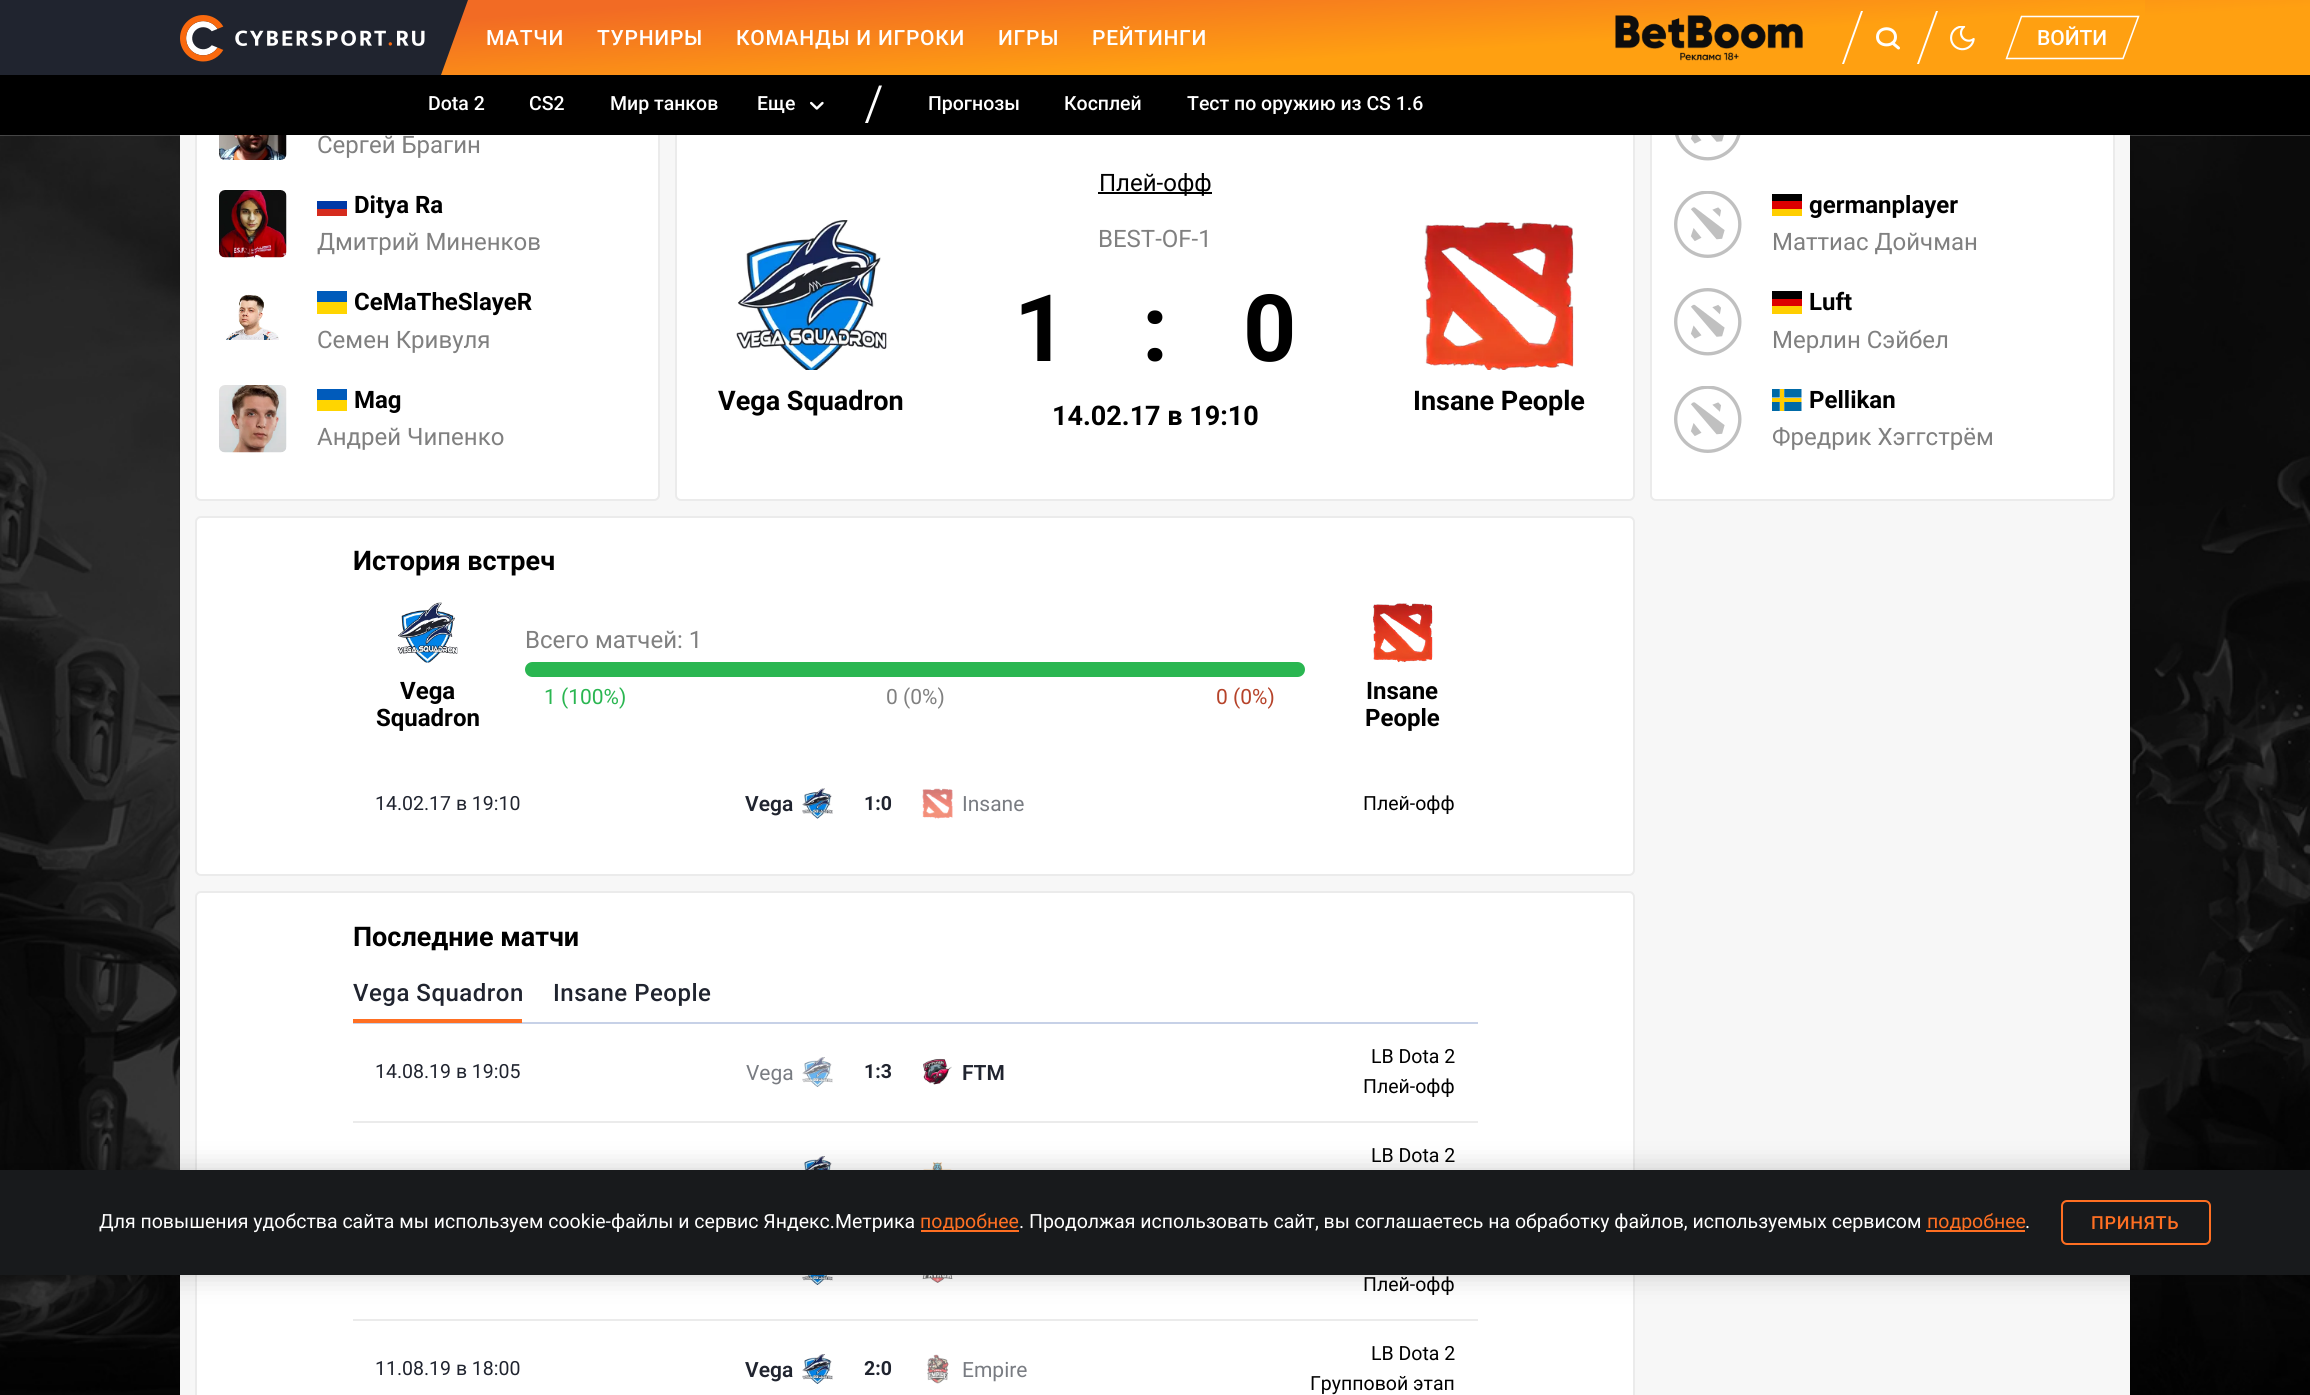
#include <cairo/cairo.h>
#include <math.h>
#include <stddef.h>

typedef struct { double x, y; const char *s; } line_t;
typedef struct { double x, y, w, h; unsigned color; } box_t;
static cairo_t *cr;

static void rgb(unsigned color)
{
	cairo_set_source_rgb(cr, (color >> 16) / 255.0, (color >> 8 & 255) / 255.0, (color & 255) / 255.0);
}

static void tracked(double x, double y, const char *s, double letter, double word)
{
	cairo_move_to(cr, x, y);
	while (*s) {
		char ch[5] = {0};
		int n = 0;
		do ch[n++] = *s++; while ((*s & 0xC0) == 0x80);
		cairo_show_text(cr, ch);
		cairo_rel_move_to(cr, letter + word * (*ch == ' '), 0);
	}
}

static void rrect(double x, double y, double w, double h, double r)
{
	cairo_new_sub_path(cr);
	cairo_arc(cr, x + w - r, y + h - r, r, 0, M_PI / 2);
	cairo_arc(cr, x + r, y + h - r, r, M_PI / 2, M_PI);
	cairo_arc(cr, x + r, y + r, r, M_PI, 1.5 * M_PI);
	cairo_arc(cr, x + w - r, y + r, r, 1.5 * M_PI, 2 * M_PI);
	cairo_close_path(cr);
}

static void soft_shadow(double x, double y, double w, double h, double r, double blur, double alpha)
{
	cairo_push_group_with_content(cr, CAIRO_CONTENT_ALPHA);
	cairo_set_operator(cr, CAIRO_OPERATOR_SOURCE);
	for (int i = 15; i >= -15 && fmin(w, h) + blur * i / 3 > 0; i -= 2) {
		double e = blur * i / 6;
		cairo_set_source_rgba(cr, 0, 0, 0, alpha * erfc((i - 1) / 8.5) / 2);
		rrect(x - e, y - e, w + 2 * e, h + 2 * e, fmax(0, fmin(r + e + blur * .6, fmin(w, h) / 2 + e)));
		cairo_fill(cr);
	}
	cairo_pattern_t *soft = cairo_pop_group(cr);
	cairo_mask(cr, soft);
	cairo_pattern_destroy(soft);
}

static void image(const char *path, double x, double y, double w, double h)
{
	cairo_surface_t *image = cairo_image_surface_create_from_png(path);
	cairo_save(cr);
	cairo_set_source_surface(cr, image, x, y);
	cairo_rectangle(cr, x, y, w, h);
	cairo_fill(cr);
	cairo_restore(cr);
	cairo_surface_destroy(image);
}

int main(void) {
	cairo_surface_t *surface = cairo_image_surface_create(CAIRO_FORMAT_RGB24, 2310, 1395);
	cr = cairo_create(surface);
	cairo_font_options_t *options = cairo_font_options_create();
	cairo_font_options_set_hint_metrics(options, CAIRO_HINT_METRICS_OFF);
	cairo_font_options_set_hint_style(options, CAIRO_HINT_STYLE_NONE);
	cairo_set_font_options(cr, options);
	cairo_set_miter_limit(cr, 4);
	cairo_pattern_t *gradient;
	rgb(0xffffff);
	cairo_paint(cr);
	gradient = cairo_pattern_create_linear(1149, -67, 1161, 142);
	cairo_pattern_add_color_stop_rgba(gradient, 0.17, 0.949, 0.42, 0.141, 1);
	cairo_pattern_add_color_stop_rgba(gradient, 0.67, 1, 0.627, 0.067, 1);
	cairo_set_source(cr, gradient);
	cairo_pattern_destroy(gradient);
	cairo_rectangle(cr, 2145, 0, 165, 75);
	cairo_fill(cr);
	image("img/5.png", 0, 135, 2310, 1260);
	rgb(0xf7f7f7);
	cairo_rectangle(cr, 180, 135, 1950, 1260);
	cairo_fill(cr);
	rgb(0xffffff);
	rrect(196, -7, 463, 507, 5);
	cairo_fill_preserve(cr);
	rgb(0xebebeb);
	cairo_stroke(cr);
	rgb(0x20242f);
	cairo_rectangle(cr, 0, 0, 423, 75);
	cairo_fill(cr);
	rgb(0xffffff);
	rrect(676, -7, 958, 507, 5);
	cairo_fill_preserve(cr);
	rgb(0xebebeb);
	cairo_stroke(cr);
	rgb(0xffffff);
	rrect(1651, -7, 463, 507, 5);
	cairo_fill_preserve(cr);
	rgb(0xebebeb);
	cairo_stroke(cr);
	gradient = cairo_pattern_create_linear(1149, -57, 1161, 132);
	cairo_pattern_add_color_stop_rgba(gradient, 0.17, 0.949, 0.42, 0.141, 1);
	cairo_pattern_add_color_stop_rgba(gradient, 0.67, 1, 0.627, 0.067, 1);
	cairo_set_source(cr, gradient);
	cairo_pattern_destroy(gradient);
	cairo_rectangle(cr, 441, 0, 1704, 75);
	cairo_fill(cr);
	rgb(0x20242f);
	cairo_new_path(cr);
	cairo_move_to(cr, 423, 0);
	cairo_line_to(cr, 468, 0);
	cairo_line_to(cr, 441, 75);
	cairo_line_to(cr, 396, 75);
	cairo_close_path(cr);
	cairo_fill(cr);
	image("img/1.png", 180, 15, 245, 47);
	image("img/2.png", 1615, 15, 188, 46);
	rgb(0xffffff);
	cairo_new_path(cr);
	cairo_move_to(cr, 1861, 11);
	cairo_line_to(cr, 1863, 11);
	cairo_line_to(cr, 1844, 64);
	cairo_line_to(cr, 1842, 64);
	cairo_close_path(cr);
	cairo_fill(cr);
	cairo_new_path(cr);
	cairo_move_to(cr, 1895.5, 37);
	cairo_curve_to(cr, 1895.5, 47.5, 1877.5, 47.5, 1877.5, 37);
	cairo_curve_to(cr, 1877.5, 26, 1895.5, 26, 1895.5, 37);
	cairo_close_path(cr);
	cairo_set_line_width(cr, 3);
	cairo_stroke(cr);
	cairo_new_path(cr);
	cairo_move_to(cr, 1892.5, 43);
	cairo_line_to(cr, 1898.5, 48);
	cairo_set_line_cap(cr, CAIRO_LINE_CAP_ROUND);
	cairo_stroke(cr);
	cairo_new_path(cr);
	cairo_move_to(cr, 1936, 11);
	cairo_line_to(cr, 1938, 11);
	cairo_line_to(cr, 1919, 64);
	cairo_line_to(cr, 1917, 64);
	cairo_close_path(cr);
	cairo_fill(cr);
	image("img/3.png", 1950, 26, 25, 25);
	cairo_new_path(cr);
	cairo_move_to(cr, 2021.5, 16.5);
	cairo_line_to(cr, 2138.5, 16.5);
	cairo_line_to(cr, 2123, 58.5);
	cairo_line_to(cr, 2006.5, 58.5);
	cairo_close_path(cr);
	cairo_set_line_width(cr, 1.5);
	cairo_set_line_cap(cr, CAIRO_LINE_CAP_BUTT);
	cairo_stroke(cr);
	rgb(0x000000);
	cairo_rectangle(cr, 0, 75, 2310, 60);
	cairo_fill(cr);
	image("img/4.png", 810, 101, 14, 9);
	rgb(0xffffff);
	cairo_new_path(cr);
	cairo_move_to(cr, 879, 85.5);
	cairo_line_to(cr, 882, 85.5);
	cairo_line_to(cr, 868, 123);
	cairo_line_to(cr, 865, 123);
	cairo_close_path(cr);
	cairo_fill(cr);
	image("img/6.png", 219, 135, 68, 25);
	image("img/7.png", 219, 190, 68, 68);
	rgb(0x0039a6);
	cairo_rectangle(cr, 317, 201, 30, 8);
	cairo_fill(cr);
	rgb(0xd52b1e);
	cairo_rectangle(cr, 317, 209, 30, 7);
	cairo_fill(cr);
	image("img/8.png", 226, 294, 53, 46);
	rgb(0xffd500);
	cairo_rectangle(cr, 317, 302, 30, 12);
	cairo_fill(cr);
	rgb(0x005bbb);
	cairo_rectangle(cr, 317, 291, 30, 11);
	cairo_fill(cr);
	image("img/9.png", 219, 385, 68, 68);
	{
		static const box_t items[] = {
			{317, 400, 30, 11, 0xffd500},
			{317, 389, 30, 11, 0x005bbb},
			{1098, 192, 114, 2, 0x000000},
		};
		for (size_t i = 0; i < sizeof items / sizeof *items; i++) {
			rgb(items[i].color);
			cairo_rectangle(cr, items[i].x, items[i].y, items[i].w, items[i].h);
			cairo_fill(cr);
		}
	}
	image("img/10.png", 736, 220, 151, 150);
	image("img/11.png", 1424, 222, 150, 148);
	image("img/12.png", 1675, 135, 66, 26);
	image("img/13.png", 1674, 191, 68, 67);
	{
		static const box_t items[] = {
			{1772, 209, 30, 7, 0xffce00},
			{1772, 194, 30, 7, 0x000000},
			{1772, 201, 30, 8, 0xdd0000},
		};
		for (size_t i = 0; i < sizeof items / sizeof *items; i++) {
			rgb(items[i].color);
			cairo_rectangle(cr, items[i].x, items[i].y, items[i].w, items[i].h);
			cairo_fill(cr);
		}
	}
	image("img/14.png", 1674, 288, 68, 68);
	{
		static const box_t items[] = {
			{1772, 306, 30, 8, 0xffce00},
			{1772, 291, 30, 8, 0x000000},
			{1772, 299, 30, 7, 0xdd0000},
		};
		for (size_t i = 0; i < sizeof items / sizeof *items; i++) {
			rgb(items[i].color);
			cairo_rectangle(cr, items[i].x, items[i].y, items[i].w, items[i].h);
			cairo_fill(cr);
		}
	}
	image("img/13.png", 1674, 386, 68, 67);
	image("img/15.png", 1772, 389, 30, 22);
	rgb(0xffffff);
	rrect(196, 517, 1438, 358, 5);
	cairo_fill_preserve(cr);
	rgb(0xebebeb);
	cairo_set_line_width(cr, 2);
	cairo_stroke(cr);
	image("img/16.png", 397, 602, 61, 61);
	rgb(0x2ab651);
	rrect(525, 662, 780, 15, 7.5);
	cairo_fill(cr);
	image("img/17.png", 1373, 603, 60, 60);
	image("img/18.png", 802, 788, 31, 31);
	image("img/19.png", 922, 788, 31, 31);
	rgb(0xffffff);
	rrect(196, 892, 1438, 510, 5);
	cairo_fill_preserve(cr);
	rgb(0xebebeb);
	cairo_stroke(cr);
	rgb(0xc7d1e7);
	cairo_rectangle(cr, 353, 1022, 1125, 2);
	cairo_fill(cr);
	rgb(0xff6f22);
	cairo_rectangle(cr, 353, 1019, 169, 4);
	cairo_fill(cr);
	image("img/20.png", 802, 1057, 31, 30);
	image("img/21.png", 923, 1058, 29, 27);
	rgb(0xebebeb);
	cairo_rectangle(cr, 353, 1121, 1125, 2);
	cairo_fill(cr);
	image("img/22.png", 804, 1156, 28, 14);
	image("img/23.png", 923, 1162, 29, 8);
	image("img/24.png", 802, 1275, 31, 10);
	image("img/25.png", 922, 1275, 31, 8);
	cairo_rectangle(cr, 353, 1319, 1125, 2);
	cairo_fill(cr);
	image("img/26.png", 802, 1354, 31, 30);
	image("img/27.png", 927, 1354, 22, 30);
	rgb(0x000000);
	soft_shadow(0, 1170, 2310, 105, 0, 13.5, 0.2);
	{
		static const box_t items[] = {
			{0, 1170, 2310, 105, 0x181a1c},
			{921, 1230, 98, 2, 0xff6f22},
			{1926, 1230, 99, 2, 0xff6f22},
		};
		for (size_t i = 0; i < sizeof items / sizeof *items; i++) {
			rgb(items[i].color);
			cairo_rectangle(cr, items[i].x, items[i].y, items[i].w, items[i].h);
			cairo_fill(cr);
		}
	}
	rrect(2062, 1201, 148, 43, 5);
	cairo_stroke(cr);
	cairo_select_font_face(cr, "Roboto Medium", CAIRO_FONT_SLANT_NORMAL, CAIRO_FONT_WEIGHT_NORMAL);
	cairo_set_font_size(cr, 21);
	rgb(0xffffff);
	{
		static const line_t items[] = {
			{486, 45, "МАТЧИ"},
			{597, 45, "ТУРНИРЫ"},
			{736, 45, "КОМАНДЫ И ИГРОКИ"},
			{998, 45, "ИГРЫ"},
			{1092, 45, "РЕЙТИНГИ"},
		};
		for (size_t i = 0; i < sizeof items / sizeof *items; i++) {
			tracked(items[i].x, items[i].y, items[i].s, 0.75, 0);
		}
	}
	cairo_move_to(cr, 2037, 45);
	cairo_show_text(cr, "ВОЙТИ");
	cairo_set_font_size(cr, 19.5);
	{
		static const line_t items[] = {
			{428, 110, "Dota 2"},
			{529, 110, "CS2"},
			{610, 110, "Мир танков"},
			{757, 110, "Еще"},
			{928, 110, "Прогнозы"},
			{1064, 110, "Косплей"},
			{1187, 110, "Тест по оружию из CS 1.6"},
		};
		for (size_t i = 0; i < sizeof items / sizeof *items; i++) {
			cairo_move_to(cr, items[i].x, items[i].y);
			cairo_show_text(cr, items[i].s);
		}
	}
	cairo_select_font_face(cr, "Roboto", CAIRO_FONT_SLANT_NORMAL, CAIRO_FONT_WEIGHT_NORMAL);
	cairo_set_font_size(cr, 24);
	rgb(0x808080);
	cairo_move_to(cr, 317, 153);
	cairo_show_text(cr, "Сергей Брагин");
	cairo_select_font_face(cr, "Roboto", CAIRO_FONT_SLANT_NORMAL, CAIRO_FONT_WEIGHT_BOLD);
	rgb(0x000000);
	cairo_move_to(cr, 354, 213);
	cairo_show_text(cr, "Ditya Ra");
	cairo_select_font_face(cr, "Roboto", CAIRO_FONT_SLANT_NORMAL, CAIRO_FONT_WEIGHT_NORMAL);
	rgb(0x808080);
	cairo_move_to(cr, 317, 250);
	cairo_show_text(cr, "Дмитрий Миненков");
	cairo_select_font_face(cr, "Roboto", CAIRO_FONT_SLANT_NORMAL, CAIRO_FONT_WEIGHT_BOLD);
	rgb(0x000000);
	cairo_move_to(cr, 354, 310);
	cairo_show_text(cr, "CeMaTheSlayeR");
	cairo_select_font_face(cr, "Roboto", CAIRO_FONT_SLANT_NORMAL, CAIRO_FONT_WEIGHT_NORMAL);
	rgb(0x808080);
	cairo_move_to(cr, 317, 348);
	cairo_show_text(cr, "Семен Кривуля");
	cairo_select_font_face(cr, "Roboto", CAIRO_FONT_SLANT_NORMAL, CAIRO_FONT_WEIGHT_BOLD);
	rgb(0x000000);
	cairo_move_to(cr, 354, 408);
	cairo_show_text(cr, "Mag");
	cairo_select_font_face(cr, "Roboto", CAIRO_FONT_SLANT_NORMAL, CAIRO_FONT_WEIGHT_NORMAL);
	rgb(0x808080);
	cairo_move_to(cr, 317, 445);
	cairo_show_text(cr, "Андрей Чипенко");
	rgb(0x000000);
	cairo_move_to(cr, 1099, 191);
	cairo_show_text(cr, "Плей-офф");
	rgb(0x808080);
	cairo_move_to(cr, 1098, 247);
	cairo_show_text(cr, "BEST-OF-1");
	cairo_select_font_face(cr, "Roboto", CAIRO_FONT_SLANT_NORMAL, CAIRO_FONT_WEIGHT_BOLD);
	cairo_set_font_size(cr, 93);
	rgb(0x000000);
	{
		static const line_t items[] = {
			{1014, 361, "1"},
			{1142, 361, ":"},
			{1243, 361, "0"},
		};
		for (size_t i = 0; i < sizeof items / sizeof *items; i++) {
			cairo_move_to(cr, items[i].x, items[i].y);
			cairo_show_text(cr, items[i].s);
		}
	}
	cairo_set_font_size(cr, 27);
	{
		static const line_t items[] = {
			{718, 410, "Vega Squadron"},
			{1052, 425, "14.02.17 в 19:10"},
			{1413, 410, "Insane People"},
		};
		for (size_t i = 0; i < sizeof items / sizeof *items; i++) {
			cairo_move_to(cr, items[i].x, items[i].y);
			cairo_show_text(cr, items[i].s);
		}
	}
	cairo_set_font_size(cr, 24);
	cairo_move_to(cr, 1809, 213);
	cairo_show_text(cr, "germanplayer");
	cairo_select_font_face(cr, "Roboto", CAIRO_FONT_SLANT_NORMAL, CAIRO_FONT_WEIGHT_NORMAL);
	rgb(0x808080);
	cairo_move_to(cr, 1772, 250);
	cairo_show_text(cr, "Маттиас Дойчман");
	cairo_select_font_face(cr, "Roboto", CAIRO_FONT_SLANT_NORMAL, CAIRO_FONT_WEIGHT_BOLD);
	rgb(0x000000);
	cairo_move_to(cr, 1809, 310);
	cairo_show_text(cr, "Luft");
	cairo_select_font_face(cr, "Roboto", CAIRO_FONT_SLANT_NORMAL, CAIRO_FONT_WEIGHT_NORMAL);
	rgb(0x808080);
	cairo_move_to(cr, 1772, 348);
	cairo_show_text(cr, "Мерлин Сэйбел");
	cairo_select_font_face(cr, "Roboto", CAIRO_FONT_SLANT_NORMAL, CAIRO_FONT_WEIGHT_BOLD);
	rgb(0x000000);
	cairo_move_to(cr, 1809, 408);
	cairo_show_text(cr, "Pellikan");
	cairo_select_font_face(cr, "Roboto", CAIRO_FONT_SLANT_NORMAL, CAIRO_FONT_WEIGHT_NORMAL);
	rgb(0x808080);
	cairo_move_to(cr, 1772, 445);
	cairo_show_text(cr, "Фредрик Хэггстрём");
	cairo_select_font_face(cr, "Roboto", CAIRO_FONT_SLANT_NORMAL, CAIRO_FONT_WEIGHT_BOLD);
	cairo_set_font_size(cr, 27);
	rgb(0x000000);
	cairo_move_to(cr, 353, 570);
	cairo_show_text(cr, "История встреч");
	cairo_set_font_size(cr, 24);
	cairo_move_to(cr, 400, 699);
	cairo_show_text(cr, "Vega");
	cairo_move_to(cr, 376, 726);
	cairo_show_text(cr, "Squadron");
	cairo_select_font_face(cr, "Roboto", CAIRO_FONT_SLANT_NORMAL, CAIRO_FONT_WEIGHT_NORMAL);
	rgb(0x808080);
	cairo_move_to(cr, 525, 648);
	cairo_show_text(cr, "Всего матчей: 1");
	cairo_set_font_size(cr, 21);
	rgb(0x2ab651);
	cairo_move_to(cr, 544, 704);
	cairo_show_text(cr, "1 (100%)");
	rgb(0x808080);
	cairo_move_to(cr, 886, 704);
	cairo_show_text(cr, "0 (0%)");
	rgb(0xb6432a);
	cairo_move_to(cr, 1216, 704);
	cairo_show_text(cr, "0 (0%)");
	cairo_select_font_face(cr, "Roboto", CAIRO_FONT_SLANT_NORMAL, CAIRO_FONT_WEIGHT_BOLD);
	cairo_set_font_size(cr, 24);
	rgb(0x000000);
	cairo_move_to(cr, 1366, 699);
	cairo_show_text(cr, "Insane");
	cairo_move_to(cr, 1365, 726);
	cairo_show_text(cr, "People");
	cairo_select_font_face(cr, "Roboto", CAIRO_FONT_SLANT_NORMAL, CAIRO_FONT_WEIGHT_NORMAL);
	cairo_set_font_size(cr, 19.5);
	rgb(0x20242f);
	cairo_move_to(cr, 375, 810);
	cairo_show_text(cr, "14.02.17 в 19:10");
	cairo_select_font_face(cr, "Roboto SemiBold", CAIRO_FONT_SLANT_NORMAL, CAIRO_FONT_WEIGHT_NORMAL);
	cairo_set_font_size(cr, 21);
	cairo_move_to(cr, 745, 811);
	cairo_show_text(cr, "Vega");
	cairo_select_font_face(cr, "Roboto", CAIRO_FONT_SLANT_NORMAL, CAIRO_FONT_WEIGHT_BOLD);
	cairo_set_font_size(cr, 19.5);
	cairo_move_to(cr, 864, 810);
	cairo_show_text(cr, "1:0");
	cairo_select_font_face(cr, "Roboto", CAIRO_FONT_SLANT_NORMAL, CAIRO_FONT_WEIGHT_NORMAL);
	cairo_set_font_size(cr, 21);
	rgb(0x797c82);
	cairo_move_to(cr, 962, 811);
	cairo_show_text(cr, "Insane");
	cairo_set_font_size(cr, 19.5);
	rgb(0x000000);
	cairo_move_to(cr, 1363, 810);
	cairo_show_text(cr, "Плей-офф");
	cairo_select_font_face(cr, "Roboto", CAIRO_FONT_SLANT_NORMAL, CAIRO_FONT_WEIGHT_BOLD);
	cairo_set_font_size(cr, 27);
	cairo_move_to(cr, 353, 946);
	cairo_show_text(cr, "Последние матчи");
	cairo_select_font_face(cr, "Roboto Medium", CAIRO_FONT_SLANT_NORMAL, CAIRO_FONT_WEIGHT_NORMAL);
	cairo_set_font_size(cr, 24);
	rgb(0x20242f);
	tracked(353, 1001, "Vega Squadron", 0.5, 0);
	tracked(553, 1001, "Insane People", 0.5, 0);
	cairo_select_font_face(cr, "Roboto", CAIRO_FONT_SLANT_NORMAL, CAIRO_FONT_WEIGHT_NORMAL);
	cairo_set_font_size(cr, 19.5);
	cairo_move_to(cr, 375, 1078);
	cairo_show_text(cr, "14.08.19 в 19:05");
	cairo_set_font_size(cr, 21);
	rgb(0x797c82);
	cairo_move_to(cr, 746, 1080);
	cairo_show_text(cr, "Vega");
	cairo_select_font_face(cr, "Roboto", CAIRO_FONT_SLANT_NORMAL, CAIRO_FONT_WEIGHT_BOLD);
	cairo_set_font_size(cr, 19.5);
	rgb(0x20242f);
	cairo_move_to(cr, 864, 1078);
	cairo_show_text(cr, "1:3");
	cairo_select_font_face(cr, "Roboto SemiBold", CAIRO_FONT_SLANT_NORMAL, CAIRO_FONT_WEIGHT_NORMAL);
	cairo_set_font_size(cr, 21);
	cairo_move_to(cr, 962, 1080);
	cairo_show_text(cr, "FTM");
	cairo_select_font_face(cr, "Roboto", CAIRO_FONT_SLANT_NORMAL, CAIRO_FONT_WEIGHT_NORMAL);
	cairo_set_font_size(cr, 19.5);
	rgb(0x000000);
	{
		static const line_t items[] = {
			{1371, 1063, "LB Dota 2"},
			{1363, 1093, "Плей-офф"},
			{1371, 1162, "LB Dota 2"},
			{1363, 1291, "Плей-офф"},
		};
		for (size_t i = 0; i < sizeof items / sizeof *items; i++) {
			cairo_move_to(cr, items[i].x, items[i].y);
			cairo_show_text(cr, items[i].s);
		}
	}
	rgb(0x20242f);
	cairo_move_to(cr, 375, 1375);
	cairo_show_text(cr, "11.08.19 в 18:00");
	cairo_select_font_face(cr, "Roboto SemiBold", CAIRO_FONT_SLANT_NORMAL, CAIRO_FONT_WEIGHT_NORMAL);
	cairo_set_font_size(cr, 21);
	cairo_move_to(cr, 745, 1377);
	cairo_show_text(cr, "Vega");
	cairo_select_font_face(cr, "Roboto", CAIRO_FONT_SLANT_NORMAL, CAIRO_FONT_WEIGHT_BOLD);
	cairo_set_font_size(cr, 19.5);
	cairo_move_to(cr, 864, 1375);
	cairo_show_text(cr, "2:0");
	cairo_select_font_face(cr, "Roboto", CAIRO_FONT_SLANT_NORMAL, CAIRO_FONT_WEIGHT_NORMAL);
	cairo_set_font_size(cr, 21);
	rgb(0x797c82);
	cairo_move_to(cr, 962, 1377);
	cairo_show_text(cr, "Empire");
	cairo_set_font_size(cr, 19.5);
	rgb(0x000000);
	cairo_move_to(cr, 1371, 1360);
	cairo_show_text(cr, "LB Dota 2");
	cairo_move_to(cr, 1310, 1390);
	cairo_show_text(cr, "Групповой этап");
	rgb(0xffffff);
	cairo_move_to(cr, 99, 1228);
	cairo_show_text(cr, "Для повышения удобства сайта мы используем cookie-файлы и сервис Яндекс.Метрика");
	rgb(0xff6f22);
	cairo_move_to(cr, 920, 1228);
	cairo_show_text(cr, "подробнее");
	rgb(0xffffff);
	cairo_move_to(cr, 1019, 1228);
	cairo_show_text(cr, ". Продолжая использовать сайт, вы соглашаетесь на обработку файлов, используемых сервисом");
	rgb(0xff6f22);
	cairo_move_to(cr, 1927, 1228);
	cairo_show_text(cr, "подробнее");
	rgb(0xffffff);
	cairo_move_to(cr, 2025, 1228);
	cairo_show_text(cr, ".");
	cairo_select_font_face(cr, "Roboto Medium", CAIRO_FONT_SLANT_NORMAL, CAIRO_FONT_WEIGHT_NORMAL);
	cairo_set_font_size(cr, 18);
	rgb(0xff6f22);
	tracked(2091, 1229, "ПРИНЯТЬ", 0.75, 0);
	cairo_surface_write_to_png(surface, "page.png");
	cairo_font_options_destroy(options);
	cairo_destroy(cr);
	cairo_surface_destroy(surface);
	return 0;
}
